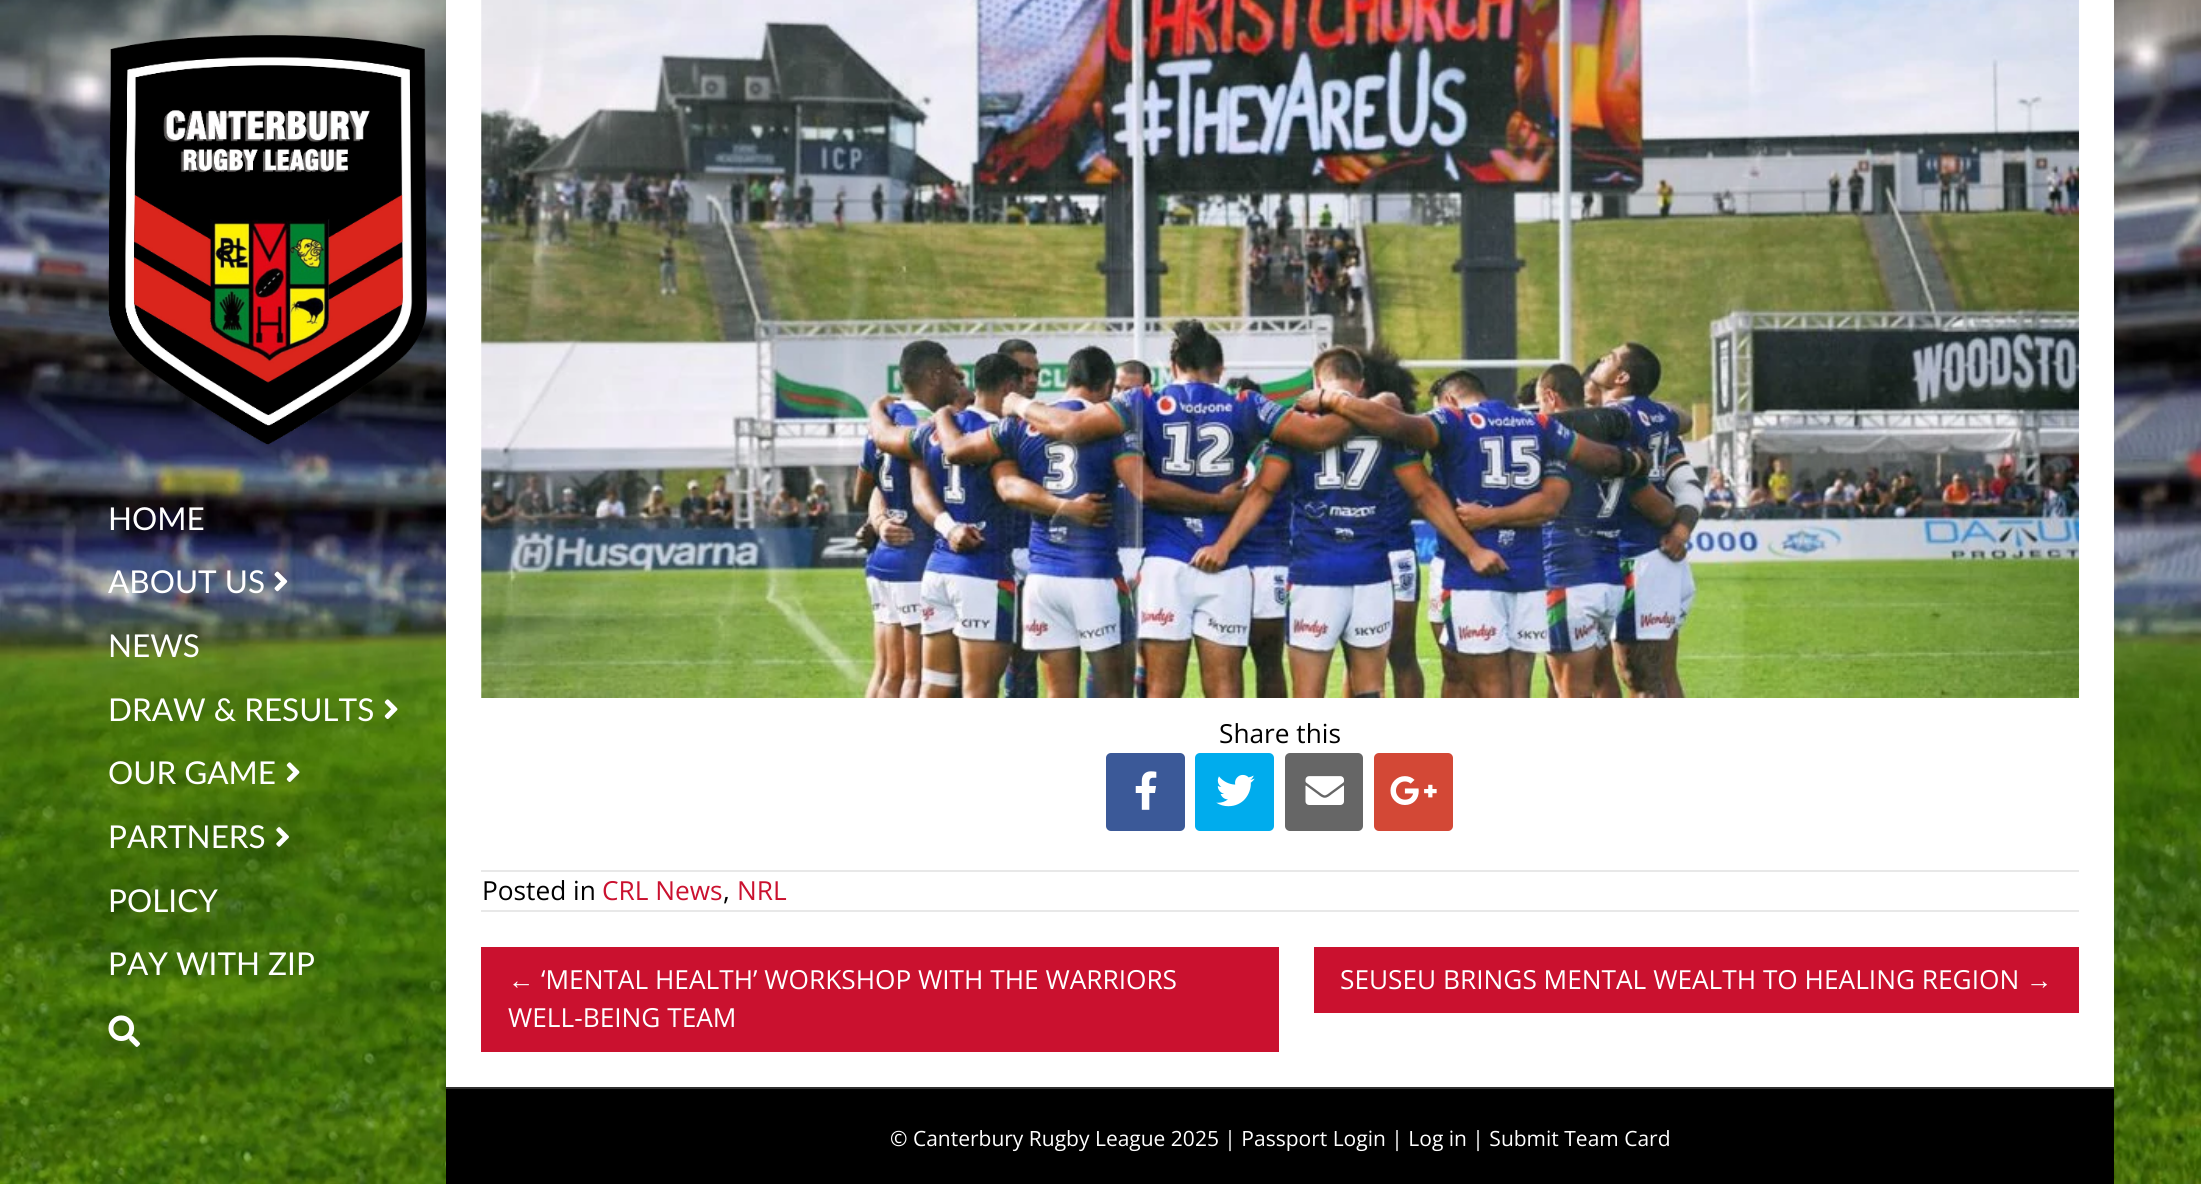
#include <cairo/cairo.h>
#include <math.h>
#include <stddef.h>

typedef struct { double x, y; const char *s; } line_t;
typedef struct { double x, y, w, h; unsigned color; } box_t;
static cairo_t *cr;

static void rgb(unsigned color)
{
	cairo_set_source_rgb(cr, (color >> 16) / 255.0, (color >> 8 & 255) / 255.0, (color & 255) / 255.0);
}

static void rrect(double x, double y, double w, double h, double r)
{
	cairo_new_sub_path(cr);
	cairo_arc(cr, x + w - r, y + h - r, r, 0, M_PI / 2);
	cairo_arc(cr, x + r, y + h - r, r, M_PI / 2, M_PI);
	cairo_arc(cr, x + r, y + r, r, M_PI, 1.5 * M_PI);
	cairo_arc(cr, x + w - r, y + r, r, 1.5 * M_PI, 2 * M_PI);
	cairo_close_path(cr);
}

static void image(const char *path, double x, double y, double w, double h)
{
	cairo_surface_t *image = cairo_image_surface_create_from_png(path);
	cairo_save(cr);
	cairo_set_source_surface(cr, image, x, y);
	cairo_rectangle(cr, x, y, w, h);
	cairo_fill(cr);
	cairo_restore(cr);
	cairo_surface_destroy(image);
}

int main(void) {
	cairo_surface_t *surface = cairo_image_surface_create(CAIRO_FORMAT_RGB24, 2201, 1184);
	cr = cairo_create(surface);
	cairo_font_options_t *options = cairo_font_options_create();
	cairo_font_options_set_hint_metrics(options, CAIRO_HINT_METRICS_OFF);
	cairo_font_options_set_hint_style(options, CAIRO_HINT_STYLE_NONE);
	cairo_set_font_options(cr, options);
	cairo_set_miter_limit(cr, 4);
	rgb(0xffffff);
	cairo_paint(cr);
	image("img/1.png", 0, 0, 2201, 1184);
	image("img/2.png", 108, 35, 319, 410);
	image("img/3.png", 274, 571, 14, 21);
	image("img/4.png", 384, 699, 14, 20);
	image("img/5.png", 286, 762, 14, 20);
	image("img/6.png", 276, 827, 13, 20);
	image("img/7.png", 108, 1015, 32, 32);
	rgb(0xffffff);
	cairo_rectangle(cr, 446, 0, 1668, 1087);
	cairo_fill(cr);
	image("img/8.png", 481, 0, 1598, 698);
	rgb(0x3b5998);
	rrect(1106, 753, 79, 78, 5);
	cairo_fill(cr);
	image("img/9.png", 1135, 771, 22, 39);
	rgb(0x00aced);
	rrect(1195, 753, 79, 78, 5);
	cairo_fill(cr);
	image("img/10.png", 1216, 774, 39, 33);
	rgb(0x666666);
	rrect(1285, 753, 78, 78, 5);
	cairo_fill(cr);
	image("img/11.png", 1305, 776, 39, 29);
	rgb(0xd34836);
	rrect(1374, 753, 79, 78, 5);
	cairo_fill(cr);
	image("img/12.png", 1390, 776, 47, 29);
	{
		static const box_t items[] = {
			{481, 870, 1598, 2, 0xe8e8e8},
			{481, 910, 1598, 2, 0xe8e8e8},
			{481, 947, 798, 105, 0xca112f},
			{1314, 947, 765, 66, 0xca112f},
			{446, 1089, 1668, 95, 0x000000},
			{446, 1087, 1668, 2, 0x303030},
		};
		for (size_t i = 0; i < sizeof items / sizeof *items; i++) {
			rgb(items[i].color);
			cairo_rectangle(cr, items[i].x, items[i].y, items[i].w, items[i].h);
			cairo_fill(cr);
		}
	}
	cairo_select_font_face(cr, "Lato", CAIRO_FONT_SLANT_NORMAL, CAIRO_FONT_WEIGHT_NORMAL);
	cairo_set_font_size(cr, 31.5);
	rgb(0xffffff);
	{
		static const line_t items[] = {
			{108, 530, "HOME"},
			{108, 593, "ABOUT US"},
			{108, 657, "NEWS"},
			{108, 721, "DRAW & RESULTS"},
			{108, 784, "OUR GAME"},
			{108, 848, "PARTNERS"},
			{108, 912, "POLICY"},
			{108, 975, "PAY WITH ZIP"},
		};
		for (size_t i = 0; i < sizeof items / sizeof *items; i++) {
			cairo_move_to(cr, items[i].x, items[i].y);
			cairo_show_text(cr, items[i].s);
		}
	}
	cairo_select_font_face(cr, "Open Sans", CAIRO_FONT_SLANT_NORMAL, CAIRO_FONT_WEIGHT_NORMAL);
	cairo_set_font_size(cr, 26.25);
	rgb(0x000000);
	cairo_move_to(cr, 1219, 743);
	cairo_show_text(cr, "Share this");
	cairo_move_to(cr, 482, 900);
	cairo_show_text(cr, "Posted in");
	rgb(0xca112f);
	cairo_move_to(cr, 602, 900);
	cairo_show_text(cr, "CRL News");
	rgb(0x000000);
	cairo_move_to(cr, 723, 900);
	cairo_show_text(cr, ",");
	rgb(0xca112f);
	cairo_move_to(cr, 737, 900);
	cairo_show_text(cr, "NRL");
	cairo_select_font_face(cr, "Liberation Sans", CAIRO_FONT_SLANT_NORMAL, CAIRO_FONT_WEIGHT_NORMAL);
	rgb(0xffffff);
	cairo_move_to(cr, 508, 989);
	cairo_show_text(cr, "←");
	cairo_select_font_face(cr, "Open Sans", CAIRO_FONT_SLANT_NORMAL, CAIRO_FONT_WEIGHT_NORMAL);
	{
		static const line_t items[] = {
			{541, 989, "‘MENTAL HEALTH’ WORKSHOP WITH THE WARRIORS"},
			{508, 1027, "WELL-BEING TEAM"},
			{1340, 989, "SEUSEU BRINGS MENTAL WEALTH TO HEALING REGION"},
		};
		for (size_t i = 0; i < sizeof items / sizeof *items; i++) {
			cairo_move_to(cr, items[i].x, items[i].y);
			cairo_show_text(cr, items[i].s);
		}
	}
	cairo_select_font_face(cr, "Liberation Sans", CAIRO_FONT_SLANT_NORMAL, CAIRO_FONT_WEIGHT_NORMAL);
	cairo_move_to(cr, 2026, 989);
	cairo_show_text(cr, "→");
	cairo_select_font_face(cr, "Open Sans", CAIRO_FONT_SLANT_NORMAL, CAIRO_FONT_WEIGHT_NORMAL);
	cairo_set_font_size(cr, 21);
	cairo_move_to(cr, 890, 1146);
	cairo_show_text(cr, "© Canterbury Rugby League 2025 | Passport Login | Log in | Submit Team Card");
	cairo_surface_write_to_png(surface, "page.png");
	cairo_font_options_destroy(options);
	cairo_destroy(cr);
	cairo_surface_destroy(surface);
	return 0;
}
